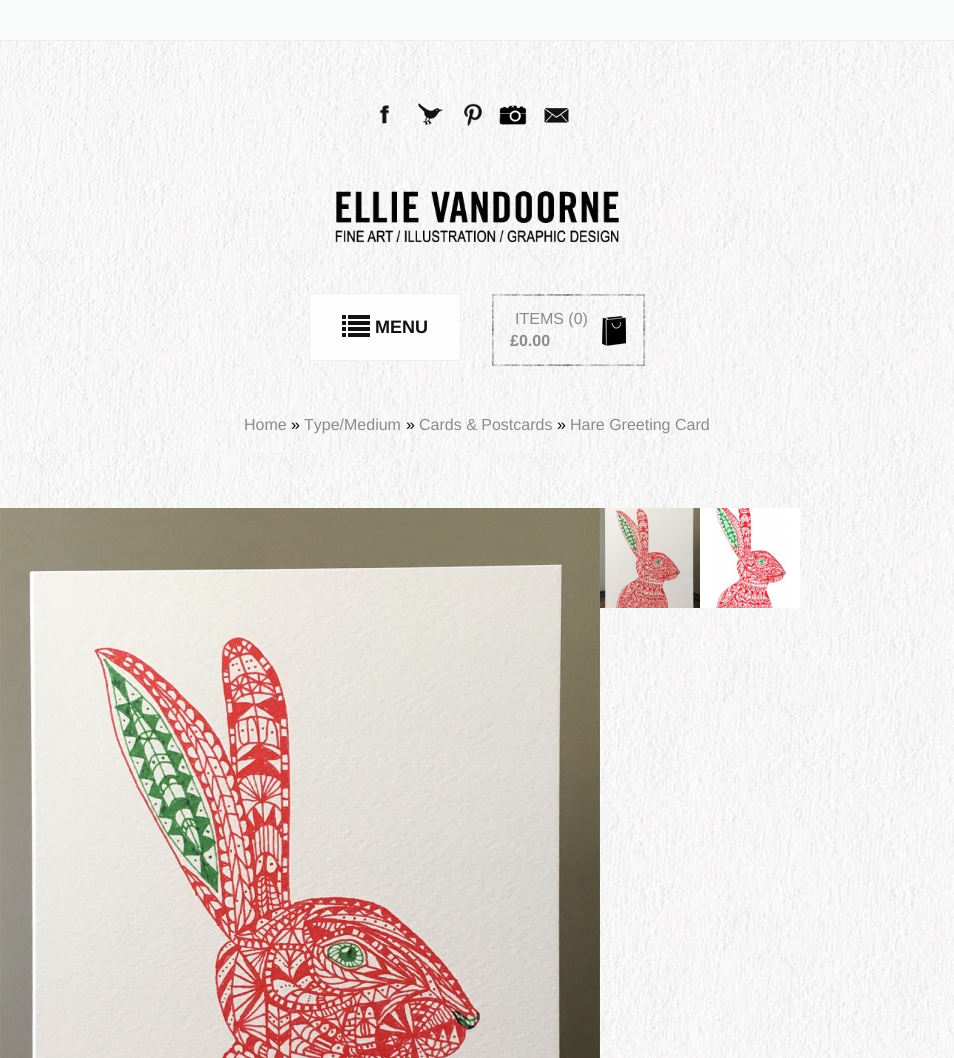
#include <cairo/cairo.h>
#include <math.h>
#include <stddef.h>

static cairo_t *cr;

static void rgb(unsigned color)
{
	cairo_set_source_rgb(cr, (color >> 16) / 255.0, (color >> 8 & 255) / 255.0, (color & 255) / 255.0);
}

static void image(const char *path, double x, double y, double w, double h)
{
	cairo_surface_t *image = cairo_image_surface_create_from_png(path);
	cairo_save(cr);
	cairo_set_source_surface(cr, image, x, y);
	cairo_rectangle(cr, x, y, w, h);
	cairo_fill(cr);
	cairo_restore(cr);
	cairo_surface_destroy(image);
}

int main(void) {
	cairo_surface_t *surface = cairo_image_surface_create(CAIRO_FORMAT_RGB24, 954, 1058);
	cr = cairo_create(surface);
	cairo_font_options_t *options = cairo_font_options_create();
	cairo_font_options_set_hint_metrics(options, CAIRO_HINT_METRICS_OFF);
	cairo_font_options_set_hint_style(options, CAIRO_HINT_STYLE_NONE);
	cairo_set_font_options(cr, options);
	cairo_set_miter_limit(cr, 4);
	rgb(0xffffff);
	cairo_paint(cr);
	image("img/1.png", 0, 41, 954, 412);
	rgb(0xf9fafa);
	cairo_rectangle(cr, 0, 0, 954, 40);
	cairo_fill(cr);
	rgb(0xededed);
	cairo_rectangle(cr, 0, 40, 954, 1);
	cairo_fill(cr);
	image("img/2.png", 380, 105, 9, 19);
	image("img/3.png", 418, 103, 25, 23);
	image("img/4.png", 464, 103, 18, 24);
	image("img/5.png", 499, 105, 28, 20);
	image("img/6.png", 544, 108, 25, 15);
	image("img/7.png", 335, 191, 284, 52);
	rgb(0xfdfdfd);
	cairo_rectangle(cr, 309.5, 293.5, 151, 67);
	cairo_fill_preserve(cr);
	rgb(0xeeeeee);
	cairo_set_line_width(cr, 1);
	cairo_stroke(cr);
	image("img/8.png", 342, 315, 28, 22);
	image("img/9.png", 492, 294, 154, 73);
	image("img/10.png", 602, 316, 24, 30);
	image("img/11.png", 0, 453, 954, 605);
	image("img/12.png", 0, 508, 600, 550);
	image("img/13.png", 600, 508, 100, 100);
	rgb(0xffffff);
	cairo_rectangle(cr, 700, 508, 100, 100);
	cairo_fill(cr);
	image("img/14.png", 711, 508, 76, 100);
	cairo_select_font_face(cr, "Liberation Sans", CAIRO_FONT_SLANT_NORMAL, CAIRO_FONT_WEIGHT_BOLD);
	cairo_set_font_size(cr, 18);
	rgb(0x121212);
	cairo_move_to(cr, 375, 333);
	cairo_show_text(cr, "MENU");
	cairo_select_font_face(cr, "Liberation Sans", CAIRO_FONT_SLANT_NORMAL, CAIRO_FONT_WEIGHT_NORMAL);
	cairo_set_font_size(cr, 16);
	rgb(0x8b8b8b);
	cairo_move_to(cr, 515, 324);
	cairo_show_text(cr, "ITEMS (0)");
	cairo_select_font_face(cr, "Liberation Sans", CAIRO_FONT_SLANT_NORMAL, CAIRO_FONT_WEIGHT_BOLD);
	cairo_move_to(cr, 510, 346);
	cairo_show_text(cr, "£0.00");
	cairo_select_font_face(cr, "Liberation Sans", CAIRO_FONT_SLANT_NORMAL, CAIRO_FONT_WEIGHT_NORMAL);
	cairo_move_to(cr, 244, 430);
	cairo_show_text(cr, "Home");
	rgb(0x000000);
	cairo_move_to(cr, 291, 430);
	cairo_show_text(cr, "»");
	rgb(0x8b8b8b);
	cairo_move_to(cr, 304, 430);
	cairo_show_text(cr, "Type/Medium");
	rgb(0x000000);
	cairo_move_to(cr, 406, 430);
	cairo_show_text(cr, "»");
	rgb(0x8b8b8b);
	cairo_move_to(cr, 419, 430);
	cairo_show_text(cr, "Cards & Postcards");
	rgb(0x000000);
	cairo_move_to(cr, 557, 430);
	cairo_show_text(cr, "»");
	rgb(0x8b8b8b);
	cairo_move_to(cr, 570, 430);
	cairo_show_text(cr, "Hare Greeting Card");
	cairo_surface_write_to_png(surface, "page.png");
	cairo_font_options_destroy(options);
	cairo_destroy(cr);
	cairo_surface_destroy(surface);
	return 0;
}
